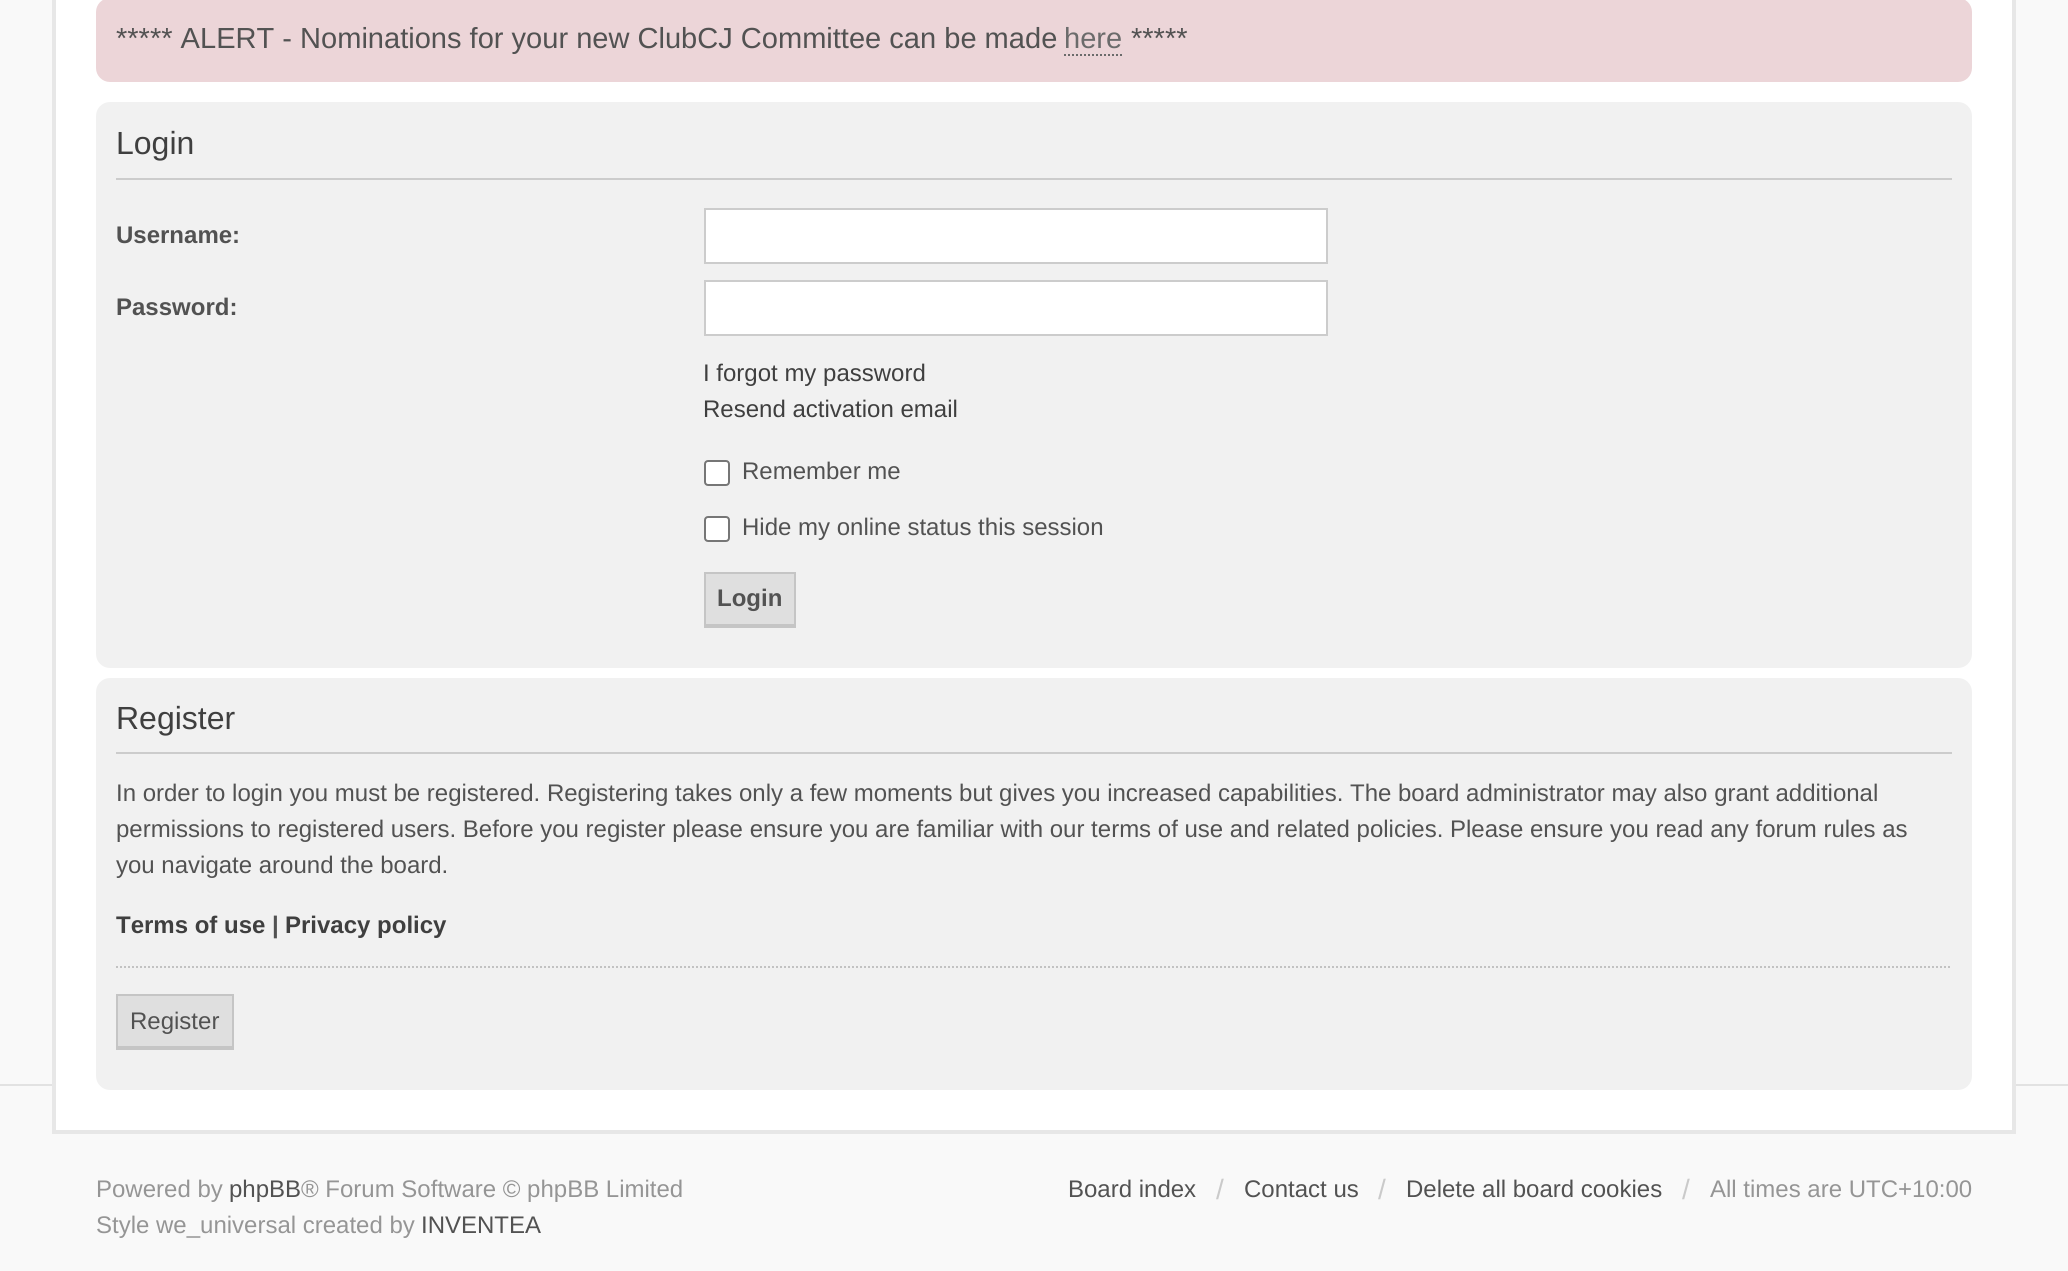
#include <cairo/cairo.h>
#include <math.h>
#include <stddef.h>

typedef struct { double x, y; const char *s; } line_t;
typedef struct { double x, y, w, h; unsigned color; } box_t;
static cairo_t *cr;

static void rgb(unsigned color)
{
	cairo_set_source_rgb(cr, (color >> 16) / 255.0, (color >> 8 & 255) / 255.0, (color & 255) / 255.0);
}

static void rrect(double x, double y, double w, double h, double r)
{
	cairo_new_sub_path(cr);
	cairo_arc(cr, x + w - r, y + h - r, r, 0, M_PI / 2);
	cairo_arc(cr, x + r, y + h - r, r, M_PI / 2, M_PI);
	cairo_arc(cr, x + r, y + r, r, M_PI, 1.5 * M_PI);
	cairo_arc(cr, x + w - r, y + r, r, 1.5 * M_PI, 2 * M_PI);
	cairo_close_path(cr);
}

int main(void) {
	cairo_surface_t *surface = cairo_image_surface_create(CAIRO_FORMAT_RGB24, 2068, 1271);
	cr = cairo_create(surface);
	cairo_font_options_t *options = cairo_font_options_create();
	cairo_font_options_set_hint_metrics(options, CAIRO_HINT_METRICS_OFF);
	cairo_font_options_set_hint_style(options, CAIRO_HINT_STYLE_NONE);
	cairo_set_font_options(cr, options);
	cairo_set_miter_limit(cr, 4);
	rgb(0xf9f9f9);
	cairo_paint(cr);
	{
		static const box_t items[] = {
			{0, 1084, 2068, 2, 0xe2e2e2},
			{56, 0, 1956, 1130, 0xffffff},
			{2012, 0, 4, 1134, 0xe7e7e7},
			{52, 1130, 1964, 4, 0xe7e7e7},
			{52, 0, 4, 1134, 0xe7e7e7},
		};
		for (size_t i = 0; i < sizeof items / sizeof *items; i++) {
			rgb(items[i].color);
			cairo_rectangle(cr, items[i].x, items[i].y, items[i].w, items[i].h);
			cairo_fill(cr);
		}
	}
	rgb(0xecd5d8);
	rrect(96, -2, 1876, 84, 14);
	cairo_fill(cr);
	cairo_new_path(cr);
	cairo_move_to(cr, 1064, 55);
	cairo_line_to(cr, 1122, 55);
	rgb(0x6b6b6b);
	cairo_set_dash(cr, (double[]){2, 2}, 2, 0);
	cairo_stroke(cr);
	rgb(0xf1f1f1);
	rrect(96, 102, 1876, 566, 14);
	cairo_fill(cr);
	rgb(0xcccccc);
	cairo_rectangle(cr, 116, 178, 1836, 2);
	cairo_fill(cr);
	rgb(0xffffff);
	cairo_rectangle(cr, 705, 209, 622, 54);
	cairo_fill_preserve(cr);
	rgb(0xcccccc);
	cairo_set_dash(cr, NULL, 0, 0);
	cairo_stroke(cr);
	rgb(0xffffff);
	cairo_rectangle(cr, 705, 281, 622, 54);
	cairo_fill_preserve(cr);
	rgb(0xcccccc);
	cairo_stroke(cr);
	rgb(0xffffff);
	rrect(705, 461, 24, 24, 3);
	cairo_fill_preserve(cr);
	rgb(0x767676);
	cairo_stroke(cr);
	rgb(0xffffff);
	rrect(705, 517, 24, 24, 3);
	cairo_fill_preserve(cr);
	rgb(0x767676);
	cairo_stroke(cr);
	{
		static const box_t items[] = {
			{706, 574, 88, 50, 0xdfdfdf},
			{704, 572, 92, 2, 0xc5c5c5},
			{794, 572, 2, 56, 0xc5c5c5},
			{704, 624, 92, 4, 0xc5c5c5},
			{704, 572, 2, 56, 0xc5c5c5},
		};
		for (size_t i = 0; i < sizeof items / sizeof *items; i++) {
			rgb(items[i].color);
			cairo_rectangle(cr, items[i].x, items[i].y, items[i].w, items[i].h);
			cairo_fill(cr);
		}
	}
	rgb(0xf1f1f1);
	rrect(96, 678, 1876, 412, 14);
	cairo_fill(cr);
	rgb(0xcccccc);
	cairo_rectangle(cr, 116, 752, 1836, 2);
	cairo_fill(cr);
	cairo_new_path(cr);
	cairo_move_to(cr, 116, 967);
	cairo_line_to(cr, 1952, 967);
	rgb(0xc2c2c2);
	cairo_set_dash(cr, (double[]){2, 2}, 2, 0);
	cairo_stroke(cr);
	{
		static const box_t items[] = {
			{118, 996, 114, 50, 0xdfdfdf},
			{116, 994, 118, 2, 0xc5c5c5},
			{232, 994, 2, 56, 0xc5c5c5},
			{116, 1046, 118, 4, 0xc5c5c5},
			{116, 994, 2, 56, 0xc5c5c5},
		};
		for (size_t i = 0; i < sizeof items / sizeof *items; i++) {
			rgb(items[i].color);
			cairo_rectangle(cr, items[i].x, items[i].y, items[i].w, items[i].h);
			cairo_fill(cr);
		}
	}
	cairo_select_font_face(cr, "Liberation Sans", CAIRO_FONT_SLANT_NORMAL, CAIRO_FONT_WEIGHT_NORMAL);
	cairo_set_font_size(cr, 29.05);
	rgb(0x525252);
	cairo_move_to(cr, 116, 48);
	cairo_show_text(cr, "***** ALERT - Nominations for your new ClubCJ Committee can be made");
	rgb(0x6b6b6b);
	cairo_move_to(cr, 1064, 48);
	cairo_show_text(cr, "here");
	rgb(0x525252);
	cairo_move_to(cr, 1131, 48);
	cairo_show_text(cr, "*****");
	cairo_set_font_size(cr, 32);
	rgb(0x3f3f3f);
	cairo_move_to(cr, 116, 154);
	cairo_show_text(cr, "Login");
	cairo_select_font_face(cr, "Liberation Sans", CAIRO_FONT_SLANT_NORMAL, CAIRO_FONT_WEIGHT_BOLD);
	cairo_set_font_size(cr, 24);
	rgb(0x525252);
	cairo_move_to(cr, 116, 243);
	cairo_show_text(cr, "Username:");
	cairo_move_to(cr, 116, 315);
	cairo_show_text(cr, "Password:");
	cairo_select_font_face(cr, "Liberation Sans", CAIRO_FONT_SLANT_NORMAL, CAIRO_FONT_WEIGHT_NORMAL);
	rgb(0x3f3f3f);
	cairo_move_to(cr, 703, 381);
	cairo_show_text(cr, "I forgot my password");
	cairo_move_to(cr, 703, 417);
	cairo_show_text(cr, "Resend activation email");
	rgb(0x525252);
	cairo_move_to(cr, 742, 479);
	cairo_show_text(cr, "Remember me");
	cairo_move_to(cr, 742, 535);
	cairo_show_text(cr, "Hide my online status this session");
	cairo_select_font_face(cr, "Liberation Sans", CAIRO_FONT_SLANT_NORMAL, CAIRO_FONT_WEIGHT_BOLD);
	cairo_move_to(cr, 717, 606);
	cairo_show_text(cr, "Login");
	cairo_select_font_face(cr, "Liberation Sans", CAIRO_FONT_SLANT_NORMAL, CAIRO_FONT_WEIGHT_NORMAL);
	cairo_set_font_size(cr, 32);
	rgb(0x3f3f3f);
	cairo_move_to(cr, 116, 729);
	cairo_show_text(cr, "Register");
	cairo_set_font_size(cr, 24);
	rgb(0x525252);
	{
		static const line_t items[] = {
			{116, 801, "In order to login you must be registered. Registering takes only a few moments but gives you increased capabilities. The board administrator may also grant additional"},
			{116, 837, "permissions to registered users. Before you register please ensure you are familiar with our terms of use and related policies. Please ensure you read any forum rules as"},
			{116, 873, "you navigate around the board."},
		};
		for (size_t i = 0; i < sizeof items / sizeof *items; i++) {
			cairo_move_to(cr, items[i].x, items[i].y);
			cairo_show_text(cr, items[i].s);
		}
	}
	cairo_select_font_face(cr, "Liberation Sans", CAIRO_FONT_SLANT_NORMAL, CAIRO_FONT_WEIGHT_BOLD);
	rgb(0x3f3f3f);
	cairo_move_to(cr, 116, 933);
	cairo_show_text(cr, "Terms of use");
	rgb(0x525252);
	cairo_move_to(cr, 272, 933);
	cairo_show_text(cr, "|");
	rgb(0x3f3f3f);
	cairo_move_to(cr, 285, 933);
	cairo_show_text(cr, "Privacy policy");
	cairo_select_font_face(cr, "Liberation Sans", CAIRO_FONT_SLANT_NORMAL, CAIRO_FONT_WEIGHT_NORMAL);
	rgb(0x525252);
	cairo_move_to(cr, 130, 1029);
	cairo_show_text(cr, "Register");
	rgb(0x959595);
	cairo_move_to(cr, 96, 1197);
	cairo_show_text(cr, "Powered by");
	rgb(0x525252);
	cairo_move_to(cr, 229, 1197);
	cairo_show_text(cr, "phpBB");
	rgb(0x959595);
	cairo_move_to(cr, 301, 1197);
	cairo_show_text(cr, "® Forum Software © phpBB Limited");
	cairo_move_to(cr, 96, 1233);
	cairo_show_text(cr, "Style we_universal created by");
	rgb(0x525252);
	cairo_move_to(cr, 421, 1233);
	cairo_show_text(cr, "INVENTEA");
	cairo_move_to(cr, 1068, 1197);
	cairo_show_text(cr, "Board index");
	cairo_set_font_size(cr, 28);
	rgb(0xcacaca);
	cairo_move_to(cr, 1216, 1199);
	cairo_show_text(cr, "/");
	cairo_set_font_size(cr, 24);
	rgb(0x525252);
	cairo_move_to(cr, 1244, 1197);
	cairo_show_text(cr, "Contact us");
	cairo_set_font_size(cr, 28);
	rgb(0xcacaca);
	cairo_move_to(cr, 1378, 1199);
	cairo_show_text(cr, "/");
	cairo_set_font_size(cr, 24);
	rgb(0x525252);
	cairo_move_to(cr, 1406, 1197);
	cairo_show_text(cr, "Delete all board cookies");
	cairo_set_font_size(cr, 28);
	rgb(0xcacaca);
	cairo_move_to(cr, 1682, 1199);
	cairo_show_text(cr, "/");
	cairo_set_font_size(cr, 24);
	rgb(0x959595);
	cairo_move_to(cr, 1710, 1197);
	cairo_show_text(cr, "All times are UTC+10:00");
	cairo_surface_write_to_png(surface, "page.png");
	cairo_font_options_destroy(options);
	cairo_destroy(cr);
	cairo_surface_destroy(surface);
	return 0;
}
